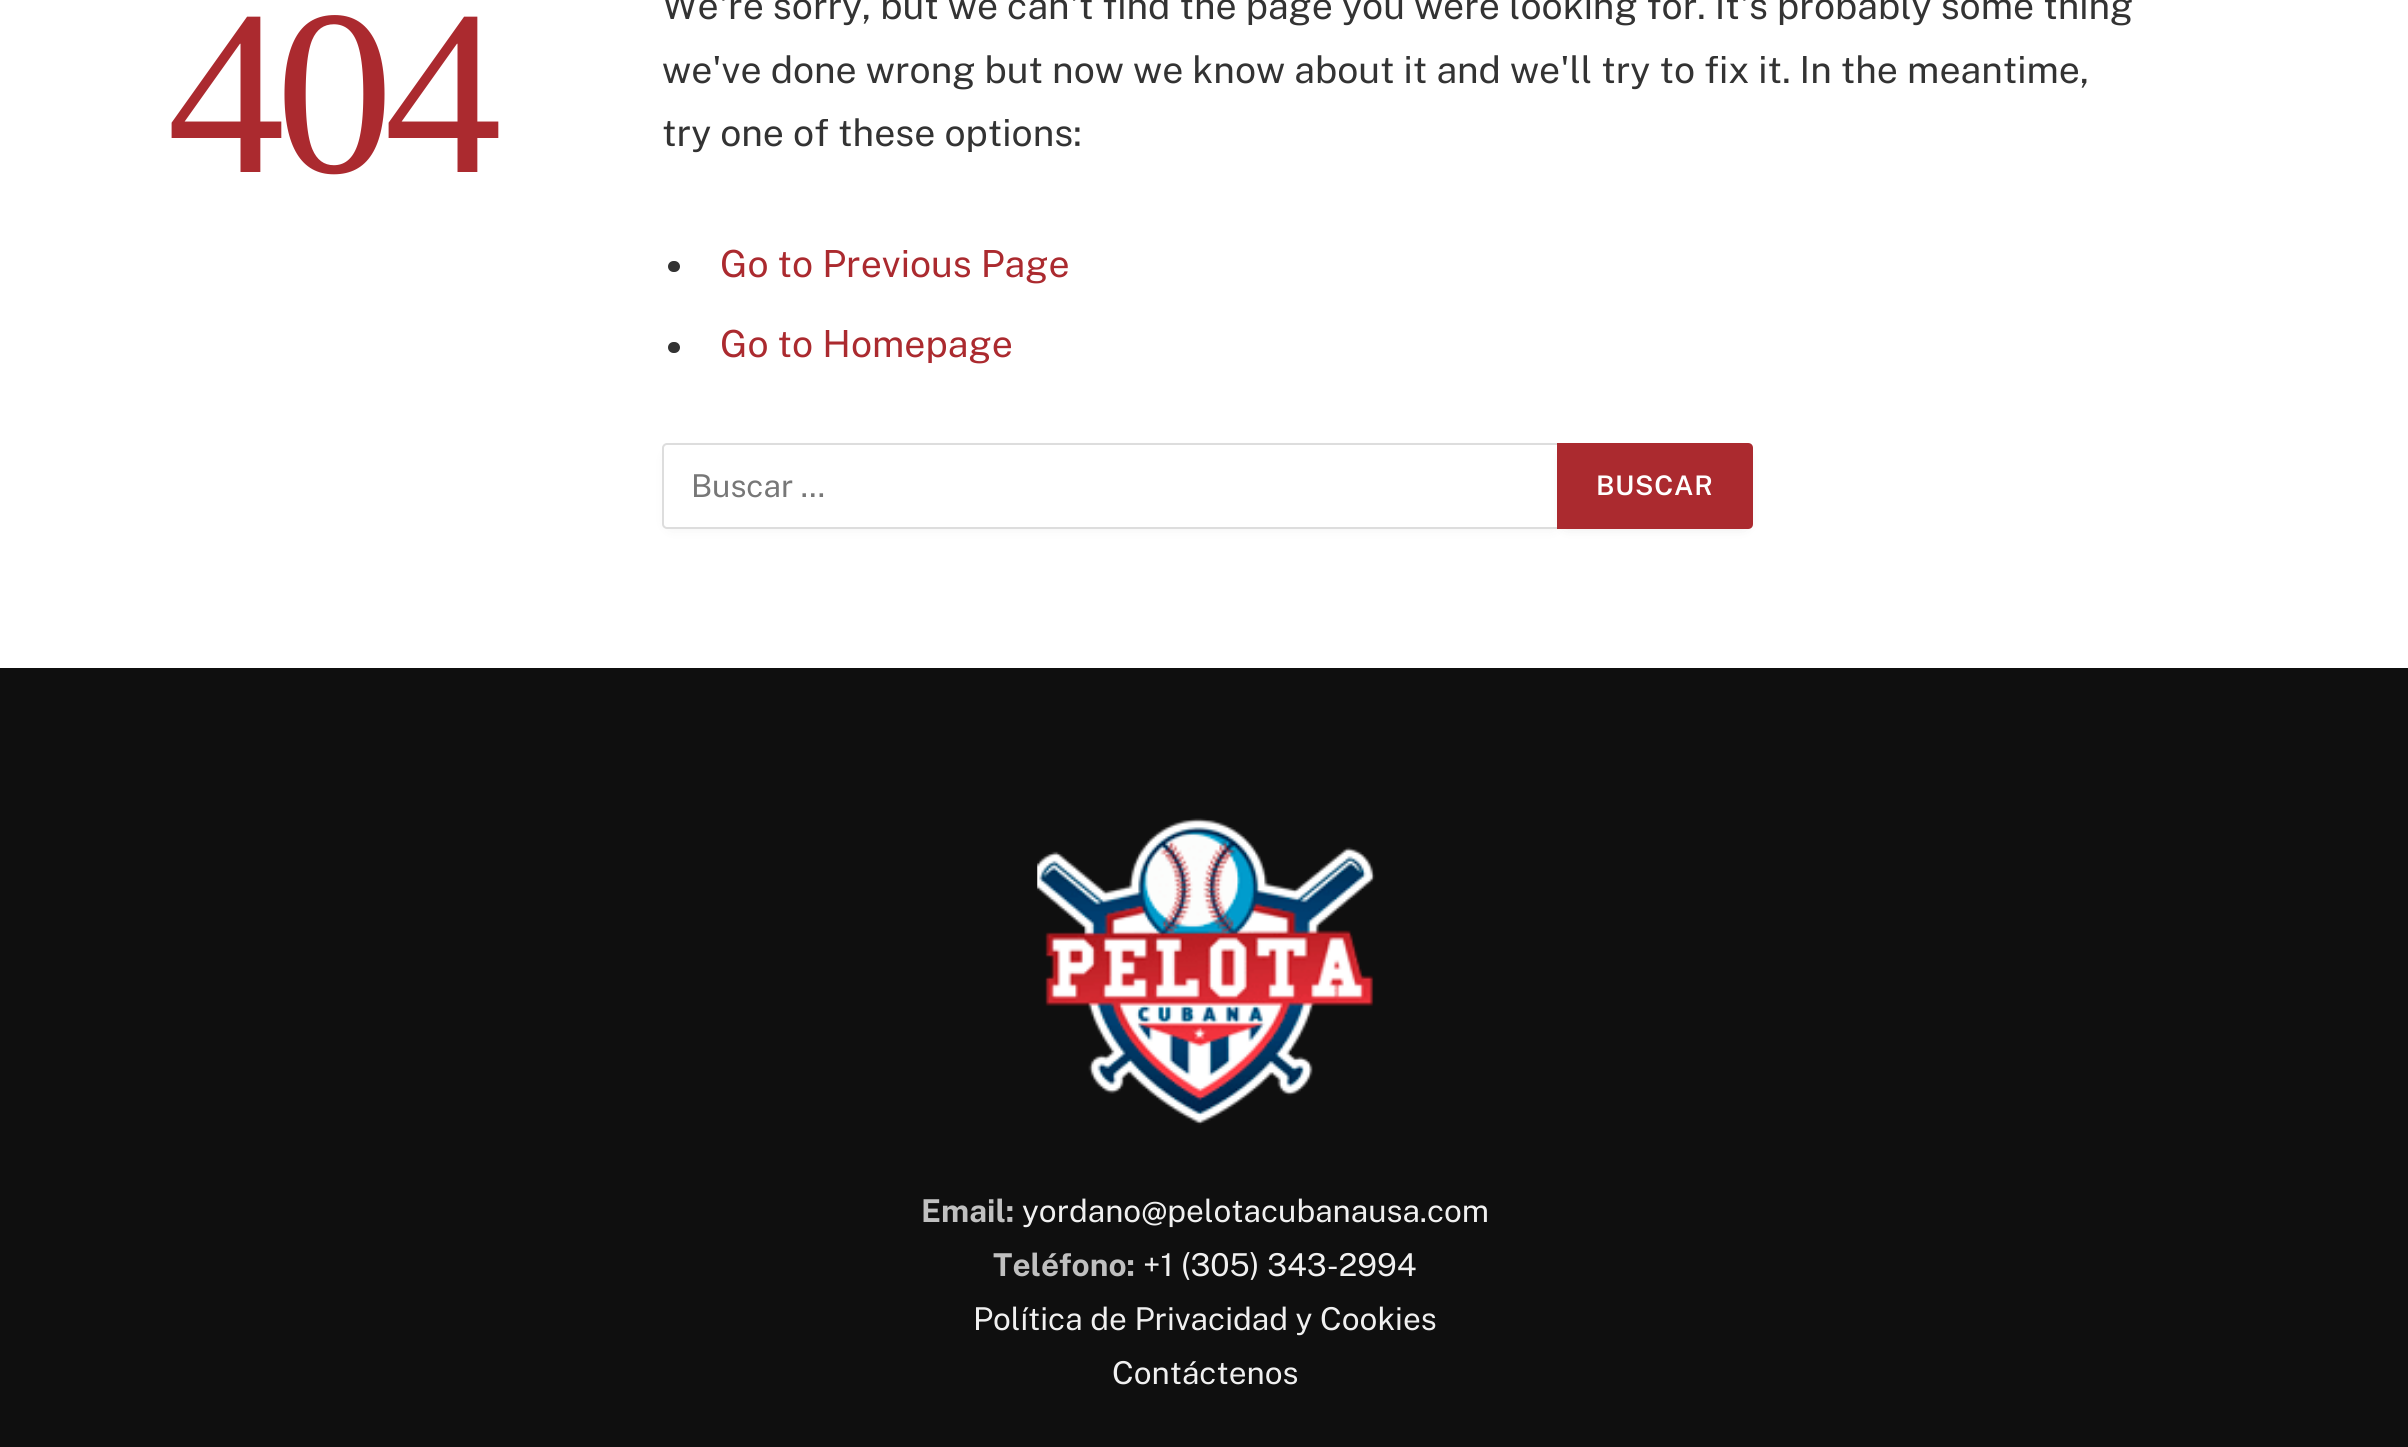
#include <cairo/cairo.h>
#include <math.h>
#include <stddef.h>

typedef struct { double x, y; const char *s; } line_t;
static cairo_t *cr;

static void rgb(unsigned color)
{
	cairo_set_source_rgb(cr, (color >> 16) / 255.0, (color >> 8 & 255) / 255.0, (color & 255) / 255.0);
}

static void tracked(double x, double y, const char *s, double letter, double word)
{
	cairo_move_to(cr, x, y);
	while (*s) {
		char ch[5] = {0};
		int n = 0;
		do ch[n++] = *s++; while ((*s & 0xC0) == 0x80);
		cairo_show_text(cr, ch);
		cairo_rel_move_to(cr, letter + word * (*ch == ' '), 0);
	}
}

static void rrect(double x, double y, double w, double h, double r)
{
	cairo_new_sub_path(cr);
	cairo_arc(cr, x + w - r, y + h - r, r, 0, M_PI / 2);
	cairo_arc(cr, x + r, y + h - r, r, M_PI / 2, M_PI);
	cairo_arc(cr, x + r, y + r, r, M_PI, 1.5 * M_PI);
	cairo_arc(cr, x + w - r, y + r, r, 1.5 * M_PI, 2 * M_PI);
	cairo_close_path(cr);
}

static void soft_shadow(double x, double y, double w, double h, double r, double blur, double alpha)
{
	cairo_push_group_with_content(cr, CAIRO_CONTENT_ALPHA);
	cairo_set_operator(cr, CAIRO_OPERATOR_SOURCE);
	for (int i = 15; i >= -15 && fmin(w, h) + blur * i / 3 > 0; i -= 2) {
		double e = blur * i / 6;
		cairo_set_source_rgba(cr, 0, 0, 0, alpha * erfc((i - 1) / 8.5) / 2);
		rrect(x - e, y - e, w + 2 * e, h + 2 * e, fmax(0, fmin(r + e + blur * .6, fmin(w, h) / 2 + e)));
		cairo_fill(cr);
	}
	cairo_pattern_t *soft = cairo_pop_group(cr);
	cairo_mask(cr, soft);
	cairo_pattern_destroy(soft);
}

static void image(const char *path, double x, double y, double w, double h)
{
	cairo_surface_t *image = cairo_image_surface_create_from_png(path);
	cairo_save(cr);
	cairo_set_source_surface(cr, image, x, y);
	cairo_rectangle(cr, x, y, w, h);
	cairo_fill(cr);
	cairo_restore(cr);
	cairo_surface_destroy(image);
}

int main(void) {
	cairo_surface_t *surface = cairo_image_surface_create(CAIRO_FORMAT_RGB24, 2408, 1447);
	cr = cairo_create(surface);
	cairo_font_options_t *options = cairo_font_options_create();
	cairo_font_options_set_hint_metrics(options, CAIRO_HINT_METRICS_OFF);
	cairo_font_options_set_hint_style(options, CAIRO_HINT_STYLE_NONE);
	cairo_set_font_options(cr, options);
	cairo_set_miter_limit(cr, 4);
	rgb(0xffffff);
	cairo_paint(cr);
	rgb(0x333333);
	rrect(668, 261, 12, 11, 5.5);
	cairo_fill(cr);
	rrect(668, 342, 12, 11, 5.5);
	cairo_fill(cr);
	rgb(0x000000);
	soft_shadow(671, 457, 882, 67, 0, 8, 0.1);
	rgb(0xffffff);
	rrect(663, 444, 898, 84, 4);
	cairo_fill_preserve(cr);
	rgb(0xdddddd);
	cairo_stroke(cr);
	rgb(0x000000);
	soft_shadow(1566, 457, 178, 67, 0, 8, 0.16);
	rgb(0xab2a2f);
	cairo_new_path(cr);
	cairo_move_to(cr, 1557, 443);
	cairo_line_to(cr, 1748, 443);
	cairo_curve_to(cr, 1751, 443, 1753, 445, 1753, 448);
	cairo_line_to(cr, 1753, 524);
	cairo_curve_to(cr, 1753, 527, 1751, 529, 1748, 529);
	cairo_line_to(cr, 1557, 529);
	cairo_close_path(cr);
	cairo_fill(cr);
	rgb(0x0f0f0f);
	cairo_rectangle(cr, 0, 668, 2408, 779);
	cairo_fill(cr);
	image("img/1.png", 1037, 818, 338, 307);
	cairo_select_font_face(cr, "Liberation Serif", CAIRO_FONT_SLANT_NORMAL, CAIRO_FONT_WEIGHT_NORMAL);
	cairo_set_font_size(cr, 236);
	rgb(0xab2a2f);
	tracked(167, 172, "404", -9.5, 0);
	cairo_select_font_face(cr, "Public Sans", CAIRO_FONT_SLANT_NORMAL, CAIRO_FONT_WEIGHT_NORMAL);
	cairo_set_font_size(cr, 37.35);
	rgb(0x333333);
	{
		static const line_t items[] = {
			{662, 19, "We're sorry, but we can't find the page you were looking for. It's probably some thing"},
			{662, 83, "we've done wrong but now we know about it and we'll try to fix it. In the meantime,"},
			{662, 146, "try one of these options:"},
		};
		for (size_t i = 0; i < sizeof items / sizeof *items; i++) {
			cairo_move_to(cr, items[i].x, items[i].y);
			cairo_show_text(cr, items[i].s);
		}
	}
	rgb(0xab2a2f);
	cairo_move_to(cr, 720, 277);
	cairo_show_text(cr, "Go to Previous Page");
	cairo_move_to(cr, 720, 357);
	cairo_show_text(cr, "Go to Homepage");
	cairo_set_font_size(cr, 31.5);
	rgb(0x777777);
	cairo_move_to(cr, 691, 497);
	cairo_show_text(cr, "Buscar …");
	cairo_select_font_face(cr, "Public Sans SemiBold", CAIRO_FONT_SLANT_NORMAL, CAIRO_FONT_WEIGHT_NORMAL);
	cairo_set_font_size(cr, 27);
	rgb(0xffffff);
	tracked(1596, 495, "BUSCAR", 0.75, 0);
	cairo_select_font_face(cr, "Public Sans", CAIRO_FONT_SLANT_NORMAL, CAIRO_FONT_WEIGHT_BOLD);
	cairo_set_font_size(cr, 31.5);
	rgb(0xc0c0c0);
	cairo_move_to(cr, 921, 1222);
	cairo_show_text(cr, "Email:");
	cairo_select_font_face(cr, "Public Sans", CAIRO_FONT_SLANT_NORMAL, CAIRO_FONT_WEIGHT_NORMAL);
	rgb(0xf0f0f0);
	cairo_move_to(cr, 1022, 1222);
	cairo_show_text(cr, "yordano@pelotacubanausa.com");
	cairo_select_font_face(cr, "Public Sans", CAIRO_FONT_SLANT_NORMAL, CAIRO_FONT_WEIGHT_BOLD);
	rgb(0xc0c0c0);
	cairo_move_to(cr, 993, 1276);
	cairo_show_text(cr, "Teléfono:");
	cairo_select_font_face(cr, "Public Sans", CAIRO_FONT_SLANT_NORMAL, CAIRO_FONT_WEIGHT_NORMAL);
	rgb(0xf0f0f0);
	{
		static const line_t items[] = {
			{1143, 1276, "+1 (305) 343-2994"},
			{973, 1330, "Política de Privacidad y Cookies"},
			{1112, 1384, "Contáctenos"},
		};
		for (size_t i = 0; i < sizeof items / sizeof *items; i++) {
			cairo_move_to(cr, items[i].x, items[i].y);
			cairo_show_text(cr, items[i].s);
		}
	}
	cairo_surface_write_to_png(surface, "page.png");
	cairo_font_options_destroy(options);
	cairo_destroy(cr);
	cairo_surface_destroy(surface);
	return 0;
}
